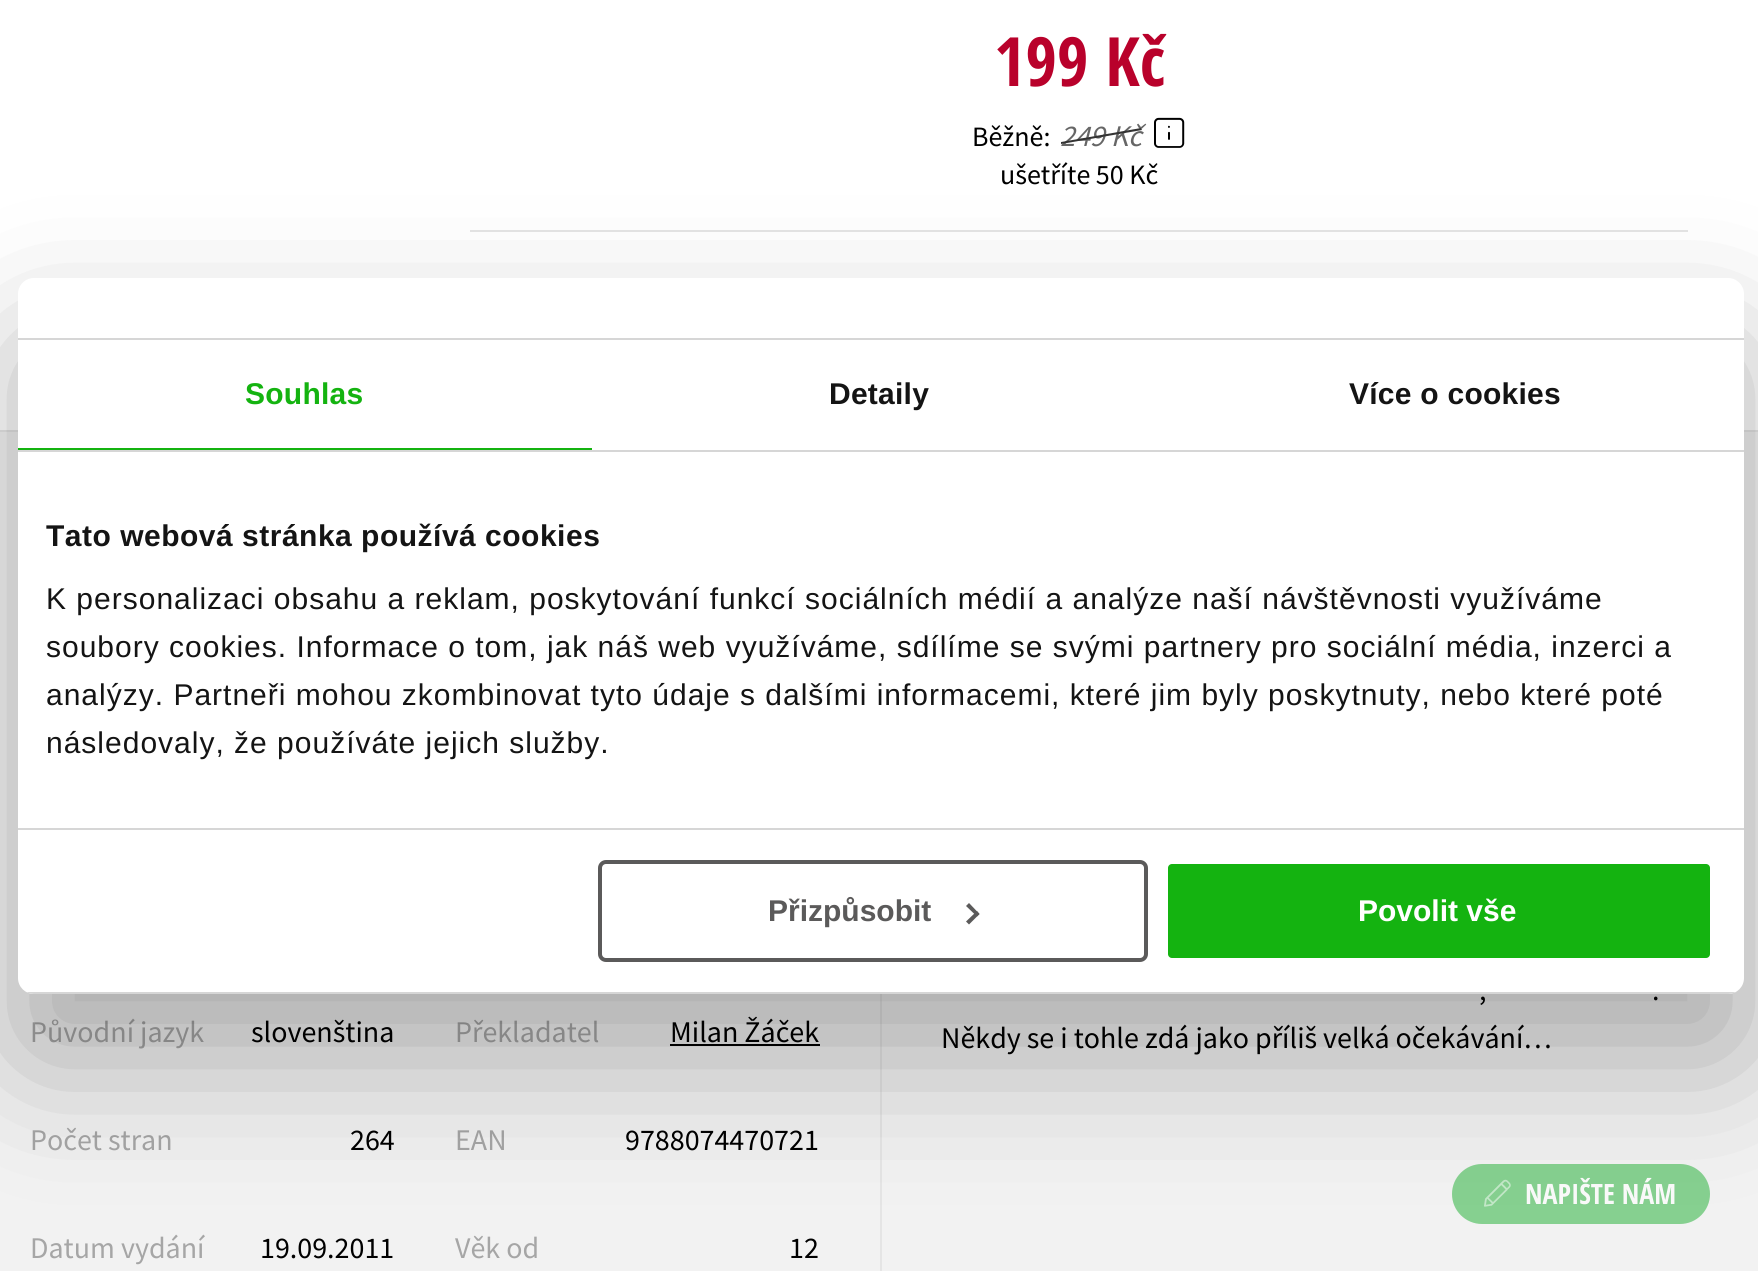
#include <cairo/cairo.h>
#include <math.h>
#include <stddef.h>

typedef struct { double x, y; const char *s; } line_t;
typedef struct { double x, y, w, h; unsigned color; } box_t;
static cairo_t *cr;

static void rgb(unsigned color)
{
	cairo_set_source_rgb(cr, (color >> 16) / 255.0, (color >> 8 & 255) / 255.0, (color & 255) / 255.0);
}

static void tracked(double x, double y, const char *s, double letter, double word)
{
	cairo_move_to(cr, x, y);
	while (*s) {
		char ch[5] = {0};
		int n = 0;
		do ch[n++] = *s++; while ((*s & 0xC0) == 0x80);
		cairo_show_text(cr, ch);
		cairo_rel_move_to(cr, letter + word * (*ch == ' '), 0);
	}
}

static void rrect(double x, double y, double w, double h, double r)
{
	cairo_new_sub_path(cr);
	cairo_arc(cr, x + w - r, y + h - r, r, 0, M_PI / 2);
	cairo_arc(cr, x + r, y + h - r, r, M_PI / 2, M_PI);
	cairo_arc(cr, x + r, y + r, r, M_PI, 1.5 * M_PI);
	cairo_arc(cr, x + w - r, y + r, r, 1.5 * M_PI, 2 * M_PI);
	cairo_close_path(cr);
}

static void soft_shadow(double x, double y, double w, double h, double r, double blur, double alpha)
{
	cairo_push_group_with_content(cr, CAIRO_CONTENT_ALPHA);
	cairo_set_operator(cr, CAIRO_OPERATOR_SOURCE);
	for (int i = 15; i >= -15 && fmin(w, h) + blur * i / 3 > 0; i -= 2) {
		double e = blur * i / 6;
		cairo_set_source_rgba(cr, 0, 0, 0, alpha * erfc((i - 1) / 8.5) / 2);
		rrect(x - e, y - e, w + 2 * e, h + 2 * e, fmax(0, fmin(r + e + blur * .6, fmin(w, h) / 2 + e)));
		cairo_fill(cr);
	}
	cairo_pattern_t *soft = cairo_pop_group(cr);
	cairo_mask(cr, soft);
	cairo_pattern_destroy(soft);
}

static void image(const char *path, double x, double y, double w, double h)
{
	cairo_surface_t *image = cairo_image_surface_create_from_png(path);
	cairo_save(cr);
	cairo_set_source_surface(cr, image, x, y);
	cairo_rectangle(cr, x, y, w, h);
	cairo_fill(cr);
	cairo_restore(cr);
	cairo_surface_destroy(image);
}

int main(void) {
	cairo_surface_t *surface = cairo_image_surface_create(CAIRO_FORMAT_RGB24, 1758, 1271);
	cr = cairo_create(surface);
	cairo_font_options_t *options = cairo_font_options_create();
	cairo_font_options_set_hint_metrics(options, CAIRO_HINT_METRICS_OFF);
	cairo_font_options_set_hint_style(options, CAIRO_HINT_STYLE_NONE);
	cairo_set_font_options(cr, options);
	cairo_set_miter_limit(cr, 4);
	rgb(0xffffff);
	cairo_paint(cr);
	rgb(0xe5e5e5);
	cairo_rectangle(cr, 0, 430, 1758, 2);
	cairo_fill(cr);
	image("img/1.png", 1154, 117, 31, 31);
	{
		static const box_t items[] = {
			{470, 230, 1218, 2, 0xe5e5e5},
			{0, 432, 1758, 839, 0xf2f2f2},
			{670, 1044, 150, 2, 0x000000},
			{880, 994, 2, 277, 0xe5e5e5},
		};
		for (size_t i = 0; i < sizeof items / sizeof *items; i++) {
			rgb(items[i].color);
			cairo_rectangle(cr, items[i].x, items[i].y, items[i].w, items[i].h);
			cairo_fill(cr);
		}
	}
	rgb(0x86d090);
	rrect(1453, 1165, 256, 58, 29);
	cairo_fill_preserve(cr);
	cairo_stroke(cr);
	image("img/2.png", 1484, 1179, 27, 28);
	cairo_select_font_face(cr, "Open Sans Condensed", CAIRO_FONT_SLANT_NORMAL, CAIRO_FONT_WEIGHT_BOLD);
	cairo_set_font_size(cr, 68);
	rgb(0xb9012b);
	cairo_move_to(cr, 994, 86);
	cairo_show_text(cr, "199 Kč");
	cairo_select_font_face(cr, "Source Sans Pro", CAIRO_FONT_SLANT_NORMAL, CAIRO_FONT_WEIGHT_NORMAL);
	cairo_set_font_size(cr, 28);
	rgb(0x000000);
	cairo_move_to(cr, 972, 146);
	cairo_show_text(cr, "Běžně:");
	cairo_select_font_face(cr, "Source Sans Pro", CAIRO_FONT_SLANT_ITALIC, CAIRO_FONT_WEIGHT_NORMAL);
	cairo_set_font_size(cr, 30);
	rgb(0x666666);
	cairo_move_to(cr, 1060, 146);
	cairo_show_text(cr, "249 Kč");
	rgb(0x333333);
	cairo_new_path(cr);
	cairo_move_to(cr, 1061, 142);
	cairo_line_to(cr, 1141, 128);
	cairo_line_to(cr, 1142, 130);
	cairo_line_to(cr, 1061, 144);
	cairo_close_path(cr);
	cairo_fill(cr);
	cairo_select_font_face(cr, "Source Sans Pro", CAIRO_FONT_SLANT_NORMAL, CAIRO_FONT_WEIGHT_NORMAL);
	cairo_set_font_size(cr, 28);
	rgb(0x000000);
	cairo_move_to(cr, 1000, 184);
	cairo_show_text(cr, "ušetříte 50 Kč");
	cairo_set_font_size(cr, 30);
	rgb(0xa6a6a6);
	cairo_move_to(cr, 30, 1042);
	cairo_show_text(cr, "Původní jazyk");
	rgb(0x000000);
	cairo_move_to(cr, 251, 1042);
	cairo_show_text(cr, "slovenština");
	rgb(0xa6a6a6);
	cairo_move_to(cr, 455, 1042);
	cairo_show_text(cr, "Překladatel");
	rgb(0x000000);
	cairo_move_to(cr, 670, 1042);
	cairo_show_text(cr, "Milan Žáček");
	rgb(0xa6a6a6);
	cairo_move_to(cr, 30, 1150);
	cairo_show_text(cr, "Počet stran");
	rgb(0x000000);
	cairo_move_to(cr, 350, 1150);
	cairo_show_text(cr, "264");
	rgb(0xa6a6a6);
	cairo_move_to(cr, 455, 1150);
	cairo_show_text(cr, "EAN");
	rgb(0x000000);
	cairo_move_to(cr, 625, 1150);
	cairo_show_text(cr, "9788074470721");
	rgb(0xa6a6a6);
	cairo_move_to(cr, 30, 1258);
	cairo_show_text(cr, "Datum vydání");
	rgb(0x000000);
	cairo_move_to(cr, 260, 1258);
	cairo_show_text(cr, "19.09.2011");
	rgb(0xa6a6a6);
	cairo_move_to(cr, 455, 1258);
	cairo_show_text(cr, "Věk od");
	rgb(0x000000);
	{
		static const line_t items[] = {
			{789, 1258, "12"},
			{1479, 1000, ","},
			{1652, 1000, "."},
			{941, 1048, "Někdy se i tohle zdá jako příliš velká očekávání…"},
		};
		for (size_t i = 0; i < sizeof items / sizeof *items; i++) {
			cairo_move_to(cr, items[i].x, items[i].y);
			cairo_show_text(cr, items[i].s);
		}
	}
	rgb(0x000000);
	soft_shadow(18, 342, 1726, 716, 16, 68, 0.3);
	rgb(0xffffff);
	rrect(18, 278, 1726, 716, 16);
	cairo_fill(cr);
	{
		static const box_t items[] = {
			{18, 338, 1726, 2, 0xd6d6d6},
			{18, 450, 1726, 2, 0xd6d6d6},
			{18, 448, 574, 2, 0x14b310},
		};
		for (size_t i = 0; i < sizeof items / sizeof *items; i++) {
			rgb(items[i].color);
			cairo_rectangle(cr, items[i].x, items[i].y, items[i].w, items[i].h);
			cairo_fill(cr);
		}
	}
	cairo_select_font_face(cr, "Liberation Sans", CAIRO_FONT_SLANT_NORMAL, CAIRO_FONT_WEIGHT_BOLD);
	tracked(245, 404, "Souhlas", 0.25, 0);
	rgb(0x141414);
	tracked(829, 404, "Detaily", 0.25, 0);
	tracked(1349, 404, "Více o cookies", 0.25, 0);
	rgb(0xd6d6d6);
	cairo_rectangle(cr, 18, 828, 1726, 2);
	cairo_fill(cr);
	rgb(0x141414);
	tracked(46, 546, "Tato webová stránka používá cookies", 0.5, 0);
	cairo_select_font_face(cr, "Liberation Sans", CAIRO_FONT_SLANT_NORMAL, CAIRO_FONT_WEIGHT_NORMAL);
	{
		static const line_t items[] = {
			{46, 609, "K personalizaci obsahu a reklam, poskytování funkcí sociálních médií a analýze naší návštěvnosti využíváme"},
			{46, 657, "soubory cookies. Informace o tom, jak náš web využíváme, sdílíme se svými partnery pro sociální média, inzerci a"},
			{46, 705, "analýzy. Partneři mohou zkombinovat tyto údaje s dalšími informacemi, které jim byly poskytnuty, nebo které poté"},
			{46, 753, "následovaly, že používáte jejich služby."},
		};
		for (size_t i = 0; i < sizeof items / sizeof *items; i++) {
			tracked(items[i].x, items[i].y, items[i].s, 1, 0);
		}
	}
	cairo_save(cr);
	rrect(18, 278, 1726, 716, 16);
	cairo_clip(cr);
	rgb(0xd6d6d6);
	cairo_rectangle(cr, 18, 992, 1726, 2);
	cairo_fill(cr);
	cairo_restore(cr);
	rrect(600, 862, 546, 98, 6);
	rgb(0x5b5a5a);
	cairo_set_line_width(cr, 4);
	cairo_stroke(cr);
	cairo_select_font_face(cr, "Liberation Sans", CAIRO_FONT_SLANT_NORMAL, CAIRO_FONT_WEIGHT_BOLD);
	cairo_move_to(cr, 768, 921);
	cairo_show_text(cr, "Přizpůsobit");
	cairo_new_path(cr);
	cairo_move_to(cr, 969, 903);
	cairo_line_to(cr, 979.5, 914);
	cairo_line_to(cr, 977, 916.5);
	cairo_line_to(cr, 966, 906);
	cairo_close_path(cr);
	cairo_fill(cr);
	cairo_new_path(cr);
	cairo_move_to(cr, 977, 911);
	cairo_line_to(cr, 979.5, 914);
	cairo_line_to(cr, 969, 924.5);
	cairo_line_to(cr, 966, 921.5);
	cairo_close_path(cr);
	cairo_fill(cr);
	rgb(0x14b310);
	rrect(1166, 862, 546, 98, 6);
	cairo_fill_preserve(cr);
	rgb(0xffffff);
	cairo_stroke(cr);
	cairo_move_to(cr, 1358, 921);
	cairo_show_text(cr, "Povolit vše");
	cairo_select_font_face(cr, "Open Sans Condensed", CAIRO_FONT_SLANT_NORMAL, CAIRO_FONT_WEIGHT_BOLD);
	cairo_set_font_size(cr, 28);
	rgb(0xf9f9f9);
	cairo_move_to(cr, 1525, 1204);
	cairo_show_text(cr, "NAPIŠTE NÁM");
	cairo_surface_write_to_png(surface, "page.png");
	cairo_font_options_destroy(options);
	cairo_destroy(cr);
	cairo_surface_destroy(surface);
	return 0;
}
